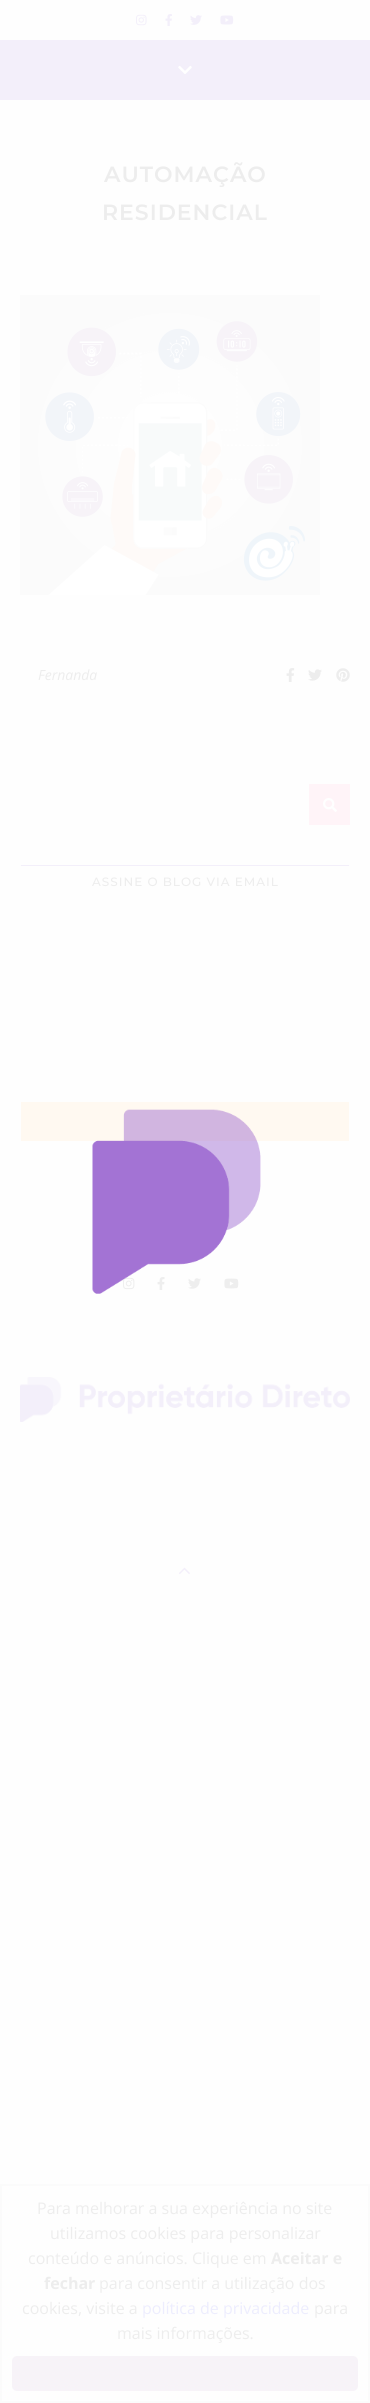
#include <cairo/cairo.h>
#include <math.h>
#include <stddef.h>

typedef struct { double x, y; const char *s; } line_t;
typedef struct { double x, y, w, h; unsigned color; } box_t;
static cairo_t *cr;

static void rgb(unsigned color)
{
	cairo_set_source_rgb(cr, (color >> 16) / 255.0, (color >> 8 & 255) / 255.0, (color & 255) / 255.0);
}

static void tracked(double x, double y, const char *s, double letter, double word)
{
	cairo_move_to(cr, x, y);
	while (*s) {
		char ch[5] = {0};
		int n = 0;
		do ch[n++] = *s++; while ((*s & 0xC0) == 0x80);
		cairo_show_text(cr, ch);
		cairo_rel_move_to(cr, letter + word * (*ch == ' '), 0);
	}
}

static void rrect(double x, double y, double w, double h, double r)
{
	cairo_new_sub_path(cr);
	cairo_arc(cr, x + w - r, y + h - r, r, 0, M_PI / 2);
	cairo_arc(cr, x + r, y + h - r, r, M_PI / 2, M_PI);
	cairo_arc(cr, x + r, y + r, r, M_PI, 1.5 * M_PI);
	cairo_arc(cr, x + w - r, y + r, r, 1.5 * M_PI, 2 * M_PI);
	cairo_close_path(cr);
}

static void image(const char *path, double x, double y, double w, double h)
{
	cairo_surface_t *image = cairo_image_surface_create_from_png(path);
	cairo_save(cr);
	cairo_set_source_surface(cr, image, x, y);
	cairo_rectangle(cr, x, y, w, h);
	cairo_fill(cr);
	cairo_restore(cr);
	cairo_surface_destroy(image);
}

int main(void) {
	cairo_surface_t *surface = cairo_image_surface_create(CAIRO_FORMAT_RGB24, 370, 2403);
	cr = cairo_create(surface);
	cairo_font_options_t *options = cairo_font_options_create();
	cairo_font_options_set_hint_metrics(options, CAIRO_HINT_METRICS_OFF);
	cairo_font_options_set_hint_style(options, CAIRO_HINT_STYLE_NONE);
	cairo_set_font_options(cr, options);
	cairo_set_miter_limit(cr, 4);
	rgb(0xfefefe);
	cairo_paint(cr);
	image("img/1.png", 136, 14, 11, 12);
	image("img/2.png", 165, 14, 7, 12);
	image("img/3.png", 190, 15, 12, 10);
	image("img/4.png", 220, 15, 14, 10);
	rgb(0xf3effa);
	cairo_rectangle(cr, 0, 40, 370, 60);
	cairo_fill(cr);
	image("img/5.png", 178, 65, 14, 10);
	image("img/6.png", 20, 295, 300, 300);
	image("img/7.png", 286, 668, 9, 14);
	image("img/8.png", 308, 669, 14, 12);
	image("img/9.png", 336, 668, 14, 14);
	rgb(0xfff4f8);
	cairo_rectangle(cr, 309, 784, 41, 41);
	cairo_fill(cr);
	image("img/10.png", 323, 798, 14, 14);
	{
		static const box_t items[] = {
			{20, 865, 330, 1, 0xf3effa},
			{349, 865, 1, 1, 0xfdfdfd},
			{20, 865, 1, 1, 0xfdfdfd},
			{21, 1102, 328, 39, 0xfff9f1},
		};
		for (size_t i = 0; i < sizeof items / sizeof *items; i++) {
			rgb(items[i].color);
			cairo_rectangle(cr, items[i].x, items[i].y, items[i].w, items[i].h);
			cairo_fill(cr);
		}
	}
	image("img/11.png", 123, 1277, 12, 13);
	image("img/12.png", 157, 1277, 8, 13);
	image("img/13.png", 188, 1278, 13, 11);
	image("img/14.png", 224, 1278, 15, 11);
	image("img/15.png", 20, 1377, 330, 45);
	image("img/16.png", 178, 1567, 12, 8);
	image("img/17.png", 92, 1109, 169, 185);
	cairo_rectangle(cr, 1, 2185, 368, 217);
	rgb(0xfbfbfb);
	cairo_stroke(cr);
	rgb(0xf7f3f8);
	rrect(12, 2356, 346, 35, 5);
	cairo_fill(cr);
	cairo_select_font_face(cr, "Montserrat SemiBold", CAIRO_FONT_SLANT_NORMAL, CAIRO_FONT_WEIGHT_NORMAL);
	cairo_set_font_size(cr, 22);
	rgb(0xededed);
	tracked(104, 182, "AUTOMAÇÃO", 1, 0);
	tracked(102, 220, "RESIDENCIAL", 1, 0);
	cairo_select_font_face(cr, "Open Sans", CAIRO_FONT_SLANT_ITALIC, CAIRO_FONT_WEIGHT_NORMAL);
	cairo_set_font_size(cr, 14);
	cairo_move_to(cr, 38, 680);
	cairo_show_text(cr, "Fernanda");
	cairo_select_font_face(cr, "Montserrat Medium", CAIRO_FONT_SLANT_NORMAL, CAIRO_FONT_WEIGHT_NORMAL);
	cairo_set_font_size(cr, 12);
	tracked(92, 886, "ASSINE O BLOG VIA EMAIL", 1, 0);
	cairo_select_font_face(cr, "Open Sans", CAIRO_FONT_SLANT_NORMAL, CAIRO_FONT_WEIGHT_NORMAL);
	cairo_set_font_size(cr, 16);
	{
		static const line_t items[] = {
			{37, 2214, "Para melhorar a sua experiência no site"},
			{50, 2239, "utilizamos cookies para personalizar"},
			{28, 2264, "conteúdo e anúncios. Clique em"},
		};
		for (size_t i = 0; i < sizeof items / sizeof *items; i++) {
			cairo_move_to(cr, items[i].x, items[i].y);
			cairo_show_text(cr, items[i].s);
		}
	}
	cairo_select_font_face(cr, "Open Sans", CAIRO_FONT_SLANT_NORMAL, CAIRO_FONT_WEIGHT_BOLD);
	cairo_move_to(cr, 271, 2264);
	cairo_show_text(cr, "Aceitar e");
	cairo_move_to(cr, 44, 2289);
	cairo_show_text(cr, "fechar");
	cairo_select_font_face(cr, "Open Sans", CAIRO_FONT_SLANT_NORMAL, CAIRO_FONT_WEIGHT_NORMAL);
	cairo_move_to(cr, 99, 2289);
	cairo_show_text(cr, "para consentir a utilização dos");
	cairo_move_to(cr, 22, 2314);
	cairo_show_text(cr, "cookies, visite a");
	rgb(0xededfe);
	cairo_move_to(cr, 142, 2314);
	cairo_show_text(cr, "política de privacidade");
	rgb(0xededed);
	cairo_move_to(cr, 314, 2314);
	cairo_show_text(cr, "para");
	cairo_move_to(cr, 117, 2339);
	cairo_show_text(cr, "mais informações.");
	cairo_surface_write_to_png(surface, "page.png");
	cairo_font_options_destroy(options);
	cairo_destroy(cr);
	cairo_surface_destroy(surface);
	return 0;
}
